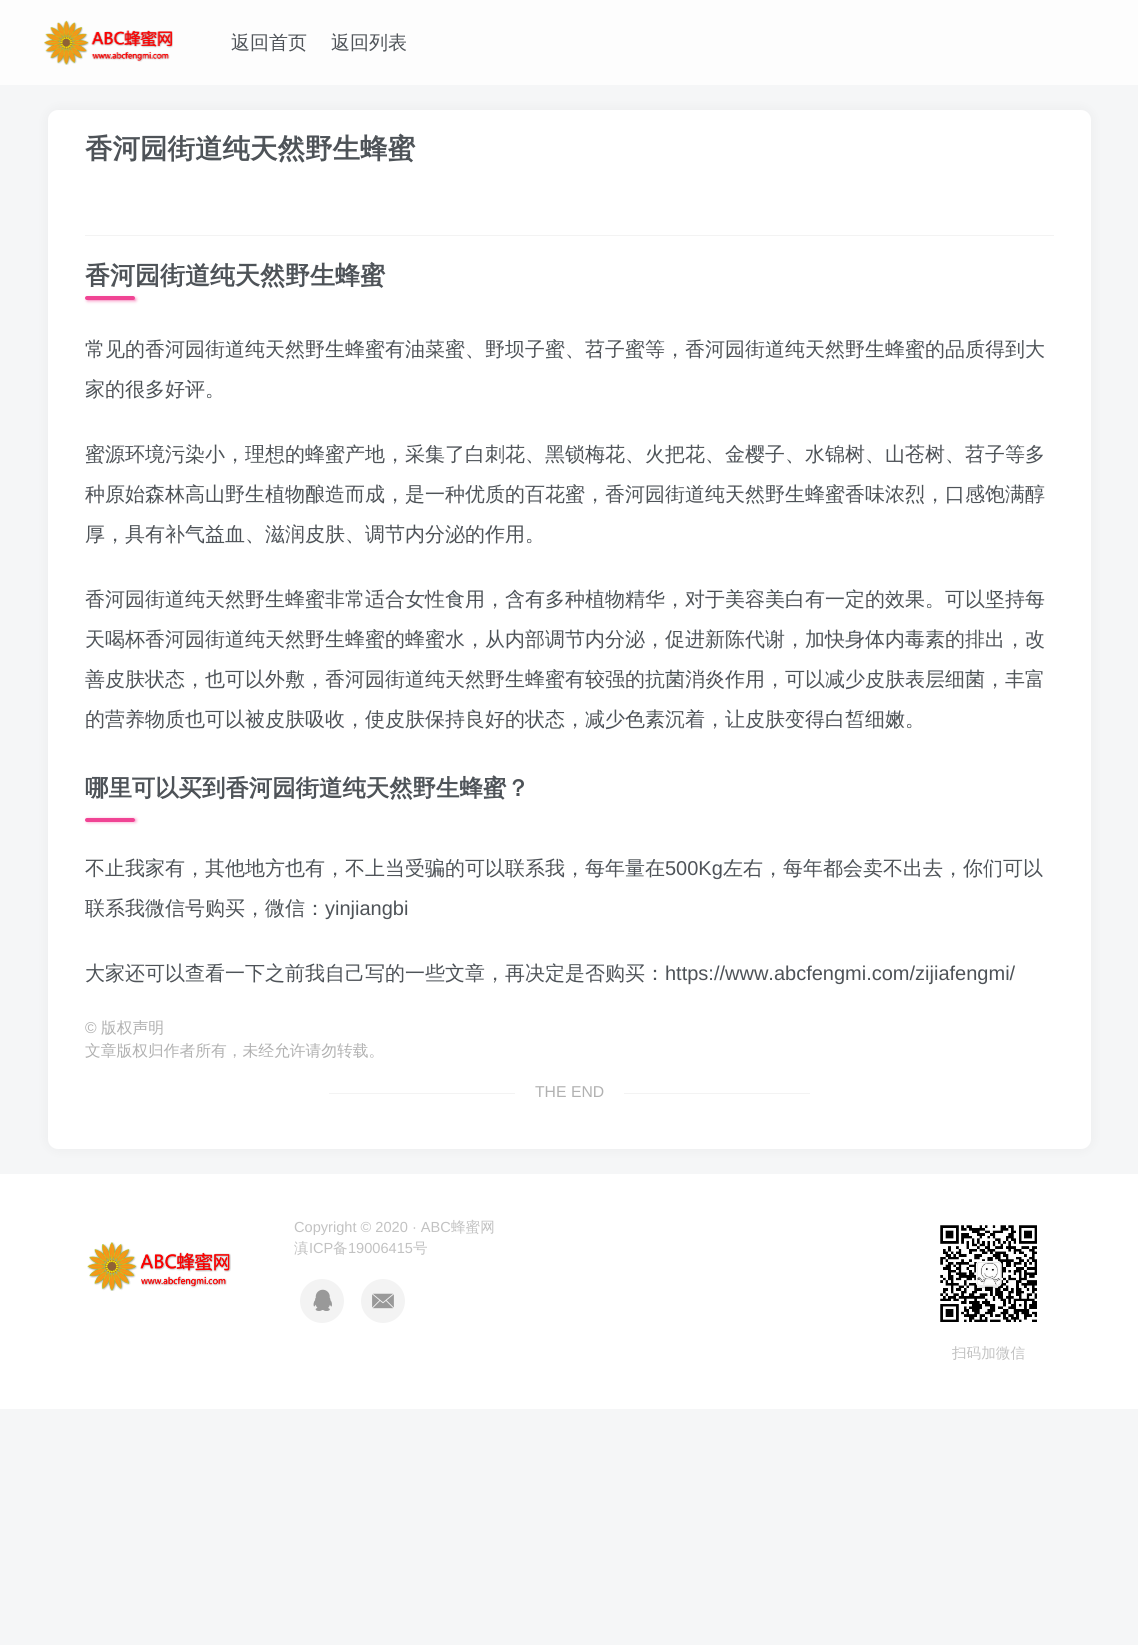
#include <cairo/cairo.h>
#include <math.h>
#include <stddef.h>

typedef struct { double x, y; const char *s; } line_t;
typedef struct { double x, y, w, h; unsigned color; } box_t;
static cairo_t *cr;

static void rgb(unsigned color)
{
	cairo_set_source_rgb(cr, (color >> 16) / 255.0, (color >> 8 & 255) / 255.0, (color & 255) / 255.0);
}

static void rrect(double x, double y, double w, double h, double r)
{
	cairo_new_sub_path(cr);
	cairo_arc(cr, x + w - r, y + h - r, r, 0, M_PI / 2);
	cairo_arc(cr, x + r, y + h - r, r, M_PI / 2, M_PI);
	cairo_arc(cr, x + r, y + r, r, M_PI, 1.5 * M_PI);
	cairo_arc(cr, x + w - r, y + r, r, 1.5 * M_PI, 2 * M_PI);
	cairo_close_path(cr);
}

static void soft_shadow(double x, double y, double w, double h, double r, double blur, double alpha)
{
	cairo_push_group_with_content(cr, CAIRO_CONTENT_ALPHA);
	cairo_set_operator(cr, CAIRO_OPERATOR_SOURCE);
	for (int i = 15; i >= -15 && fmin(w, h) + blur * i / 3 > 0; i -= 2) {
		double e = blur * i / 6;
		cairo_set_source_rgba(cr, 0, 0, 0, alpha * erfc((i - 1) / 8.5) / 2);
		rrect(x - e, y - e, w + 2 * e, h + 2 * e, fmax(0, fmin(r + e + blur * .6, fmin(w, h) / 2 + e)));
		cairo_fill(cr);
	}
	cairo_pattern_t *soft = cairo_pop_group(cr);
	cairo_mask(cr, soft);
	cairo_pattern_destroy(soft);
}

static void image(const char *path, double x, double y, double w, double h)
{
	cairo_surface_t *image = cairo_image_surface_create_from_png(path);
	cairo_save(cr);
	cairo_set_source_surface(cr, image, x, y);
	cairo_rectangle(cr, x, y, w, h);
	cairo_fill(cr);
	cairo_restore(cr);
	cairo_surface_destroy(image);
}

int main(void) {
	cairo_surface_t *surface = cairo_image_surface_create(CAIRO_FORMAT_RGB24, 1138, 1645);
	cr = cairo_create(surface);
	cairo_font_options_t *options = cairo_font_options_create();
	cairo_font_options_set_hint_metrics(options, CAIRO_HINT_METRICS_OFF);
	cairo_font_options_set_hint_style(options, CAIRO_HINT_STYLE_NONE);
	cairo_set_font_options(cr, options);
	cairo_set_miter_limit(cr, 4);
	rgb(0xf5f6f7);
	cairo_paint(cr);
	rgb(0xfdfdfd);
	cairo_rectangle(cr, 0, 0, 1138, 85);
	cairo_fill(cr);
	image("img/1.png", 44, 20, 129, 45);
	image("img/2.png", 44, 20, 129, 45);
	rgb(0x747474);
	soft_shadow(48, 110, 1043, 1039, 10, 6, 0.08);
	rgb(0xffffff);
	rrect(48, 110, 1043, 1039, 10);
	cairo_fill(cr);
	rgb(0xf3f3f3);
	cairo_rectangle(cr, 85, 235, 969, 1);
	cairo_fill(cr);
	rgb(0xf04494);
	soft_shadow(88, 299, 47, 1, 0.5, 2, 1);
	rgb(0xf04494);
	rrect(85, 296, 50, 4, 2);
	cairo_fill(cr);
	rgb(0xf04494);
	soft_shadow(88, 820, 47, 1, 0.5, 2, 1);
	rgb(0xf04494);
	rrect(85, 818, 50, 4, 2);
	cairo_fill(cr);
	{
		static const box_t items[] = {
			{329, 1093, 186, 1, 0xf3f3f3},
			{624, 1093, 186, 1, 0xf3f3f3},
			{0, 1174, 1138, 235, 0xffffff},
		};
		for (size_t i = 0; i < sizeof items / sizeof *items; i++) {
			rgb(items[i].color);
			cairo_rectangle(cr, items[i].x, items[i].y, items[i].w, items[i].h);
			cairo_fill(cr);
		}
	}
	rgb(0xf3f3f3);
	cairo_arc(cr, 322, 1301, 22, 0, 2 * M_PI);
	cairo_fill(cr);
	image("img/3.png", 313, 1289, 19, 22);
	cairo_arc(cr, 383, 1301, 22, 0, 2 * M_PI);
	cairo_fill(cr);
	image("img/4.png", 372, 1293, 22, 16);
	image("img/5.png", 87, 1242, 144, 49);
	image("img/6.png", 87, 1242, 144, 49);
	image("img/7.png", 940, 1225, 97, 97);
	cairo_select_font_face(cr, "WenQuanYi Zen Hei Medium", CAIRO_FONT_SLANT_NORMAL, CAIRO_FONT_WEIGHT_NORMAL);
	cairo_set_font_size(cr, 19);
	rgb(0x4e5358);
	cairo_move_to(cr, 231, 49);
	cairo_show_text(cr, "返回首页");
	cairo_move_to(cr, 331, 49);
	cairo_show_text(cr, "返回列表");
	cairo_select_font_face(cr, "WenQuanYi Zen Hei", CAIRO_FONT_SLANT_NORMAL, CAIRO_FONT_WEIGHT_BOLD);
	cairo_set_font_size(cr, 27.5);
	cairo_move_to(cr, 85, 158);
	cairo_show_text(cr, "香河园街道纯天然野生蜂蜜");
	cairo_set_font_size(cr, 25);
	cairo_move_to(cr, 85, 284);
	cairo_show_text(cr, "香河园街道纯天然野生蜂蜜");
	cairo_select_font_face(cr, "WenQuanYi Zen Hei Medium", CAIRO_FONT_SLANT_NORMAL, CAIRO_FONT_WEIGHT_NORMAL);
	cairo_set_font_size(cr, 20);
	{
		static const line_t items[] = {
			{85, 356, "常见的香河园街道纯天然野生蜂蜜有油菜蜜、野坝子蜜、苕子蜜等，香河园街道纯天然野生蜂蜜的品质得到大"},
			{85, 396, "家的很多好评。"},
			{85, 461, "蜜源环境污染小，理想的蜂蜜产地，采集了白刺花、黑锁梅花、火把花、金樱子、水锦树、山苍树、苕子等多"},
			{85, 501, "种原始森林高山野生植物酿造而成，是一种优质的百花蜜，香河园街道纯天然野生蜂蜜香味浓烈，口感饱满醇"},
			{85, 541, "厚，具有补气益血、滋润皮肤、调节内分泌的作用。"},
			{85, 606, "香河园街道纯天然野生蜂蜜非常适合女性食用，含有多种植物精华，对于美容美白有一定的效果。可以坚持每"},
			{85, 646, "天喝杯香河园街道纯天然野生蜂蜜的蜂蜜水，从内部调节内分泌，促进新陈代谢，加快身体内毒素的排出，改"},
			{85, 686, "善皮肤状态，也可以外敷，香河园街道纯天然野生蜂蜜有较强的抗菌消炎作用，可以减少皮肤表层细菌，丰富"},
			{85, 726, "的营养物质也可以被皮肤吸收，使皮肤保持良好的状态，减少色素沉着，让皮肤变得白皙细嫩。"},
		};
		for (size_t i = 0; i < sizeof items / sizeof *items; i++) {
			cairo_move_to(cr, items[i].x, items[i].y);
			cairo_show_text(cr, items[i].s);
		}
	}
	cairo_select_font_face(cr, "WenQuanYi Zen Hei", CAIRO_FONT_SLANT_NORMAL, CAIRO_FONT_WEIGHT_BOLD);
	cairo_set_font_size(cr, 23.4);
	cairo_move_to(cr, 85, 796);
	cairo_show_text(cr, "哪里可以买到香河园街道纯天然野生蜂蜜？");
	cairo_select_font_face(cr, "WenQuanYi Zen Hei Medium", CAIRO_FONT_SLANT_NORMAL, CAIRO_FONT_WEIGHT_NORMAL);
	cairo_set_font_size(cr, 20);
	cairo_move_to(cr, 85, 875);
	cairo_show_text(cr, "不止我家有，其他地方也有，不上当受骗的可以联系我，每年量在");
	cairo_select_font_face(cr, "Liberation Sans", CAIRO_FONT_SLANT_NORMAL, CAIRO_FONT_WEIGHT_NORMAL);
	cairo_move_to(cr, 665, 875);
	cairo_show_text(cr, "500Kg");
	cairo_select_font_face(cr, "WenQuanYi Zen Hei Medium", CAIRO_FONT_SLANT_NORMAL, CAIRO_FONT_WEIGHT_NORMAL);
	cairo_move_to(cr, 723, 875);
	cairo_show_text(cr, "左右，每年都会卖不出去，你们可以");
	cairo_move_to(cr, 85, 915);
	cairo_show_text(cr, "联系我微信号购买，微信：");
	cairo_select_font_face(cr, "Liberation Sans", CAIRO_FONT_SLANT_NORMAL, CAIRO_FONT_WEIGHT_NORMAL);
	cairo_move_to(cr, 325, 915);
	cairo_show_text(cr, "yinjiangbi");
	cairo_select_font_face(cr, "WenQuanYi Zen Hei Medium", CAIRO_FONT_SLANT_NORMAL, CAIRO_FONT_WEIGHT_NORMAL);
	cairo_move_to(cr, 85, 980);
	cairo_show_text(cr, "大家还可以查看一下之前我自己写的一些文章，再决定是否购买：");
	cairo_select_font_face(cr, "Liberation Sans", CAIRO_FONT_SLANT_NORMAL, CAIRO_FONT_WEIGHT_NORMAL);
	cairo_move_to(cr, 665, 980);
	cairo_show_text(cr, "https://www.abcfengmi.com/zijiafengmi/");
	cairo_set_font_size(cr, 15.75);
	rgb(0xb1b1b1);
	cairo_move_to(cr, 85, 1033);
	cairo_show_text(cr, "©");
	cairo_select_font_face(cr, "WenQuanYi Zen Hei Medium", CAIRO_FONT_SLANT_NORMAL, CAIRO_FONT_WEIGHT_NORMAL);
	cairo_move_to(cr, 101, 1033);
	cairo_show_text(cr, "版权声明");
	cairo_move_to(cr, 85, 1056);
	cairo_show_text(cr, "文章版权归作者所有，未经允许请勿转载。");
	cairo_select_font_face(cr, "Liberation Sans", CAIRO_FONT_SLANT_NORMAL, CAIRO_FONT_WEIGHT_NORMAL);
	cairo_move_to(cr, 535, 1097);
	cairo_show_text(cr, "THE END");
	cairo_set_font_size(cr, 14.6);
	rgb(0xc2c2c2);
	cairo_move_to(cr, 294, 1232);
	cairo_show_text(cr, "Copyright © 2020 · ABC");
	cairo_select_font_face(cr, "WenQuanYi Zen Hei Medium", CAIRO_FONT_SLANT_NORMAL, CAIRO_FONT_WEIGHT_NORMAL);
	cairo_move_to(cr, 451, 1232);
	cairo_show_text(cr, "蜂蜜网");
	cairo_move_to(cr, 294, 1253);
	cairo_show_text(cr, "滇");
	cairo_select_font_face(cr, "Liberation Sans", CAIRO_FONT_SLANT_NORMAL, CAIRO_FONT_WEIGHT_NORMAL);
	cairo_move_to(cr, 309, 1253);
	cairo_show_text(cr, "ICP");
	cairo_select_font_face(cr, "WenQuanYi Zen Hei Medium", CAIRO_FONT_SLANT_NORMAL, CAIRO_FONT_WEIGHT_NORMAL);
	cairo_move_to(cr, 333, 1253);
	cairo_show_text(cr, "备");
	cairo_select_font_face(cr, "Liberation Sans", CAIRO_FONT_SLANT_NORMAL, CAIRO_FONT_WEIGHT_NORMAL);
	cairo_move_to(cr, 348, 1253);
	cairo_show_text(cr, "19006415");
	cairo_select_font_face(cr, "WenQuanYi Zen Hei Medium", CAIRO_FONT_SLANT_NORMAL, CAIRO_FONT_WEIGHT_NORMAL);
	cairo_move_to(cr, 413, 1253);
	cairo_show_text(cr, "号");
	cairo_move_to(cr, 952, 1358);
	cairo_show_text(cr, "扫码加微信");
	cairo_surface_write_to_png(surface, "page.png");
	cairo_font_options_destroy(options);
	cairo_destroy(cr);
	cairo_surface_destroy(surface);
	return 0;
}
